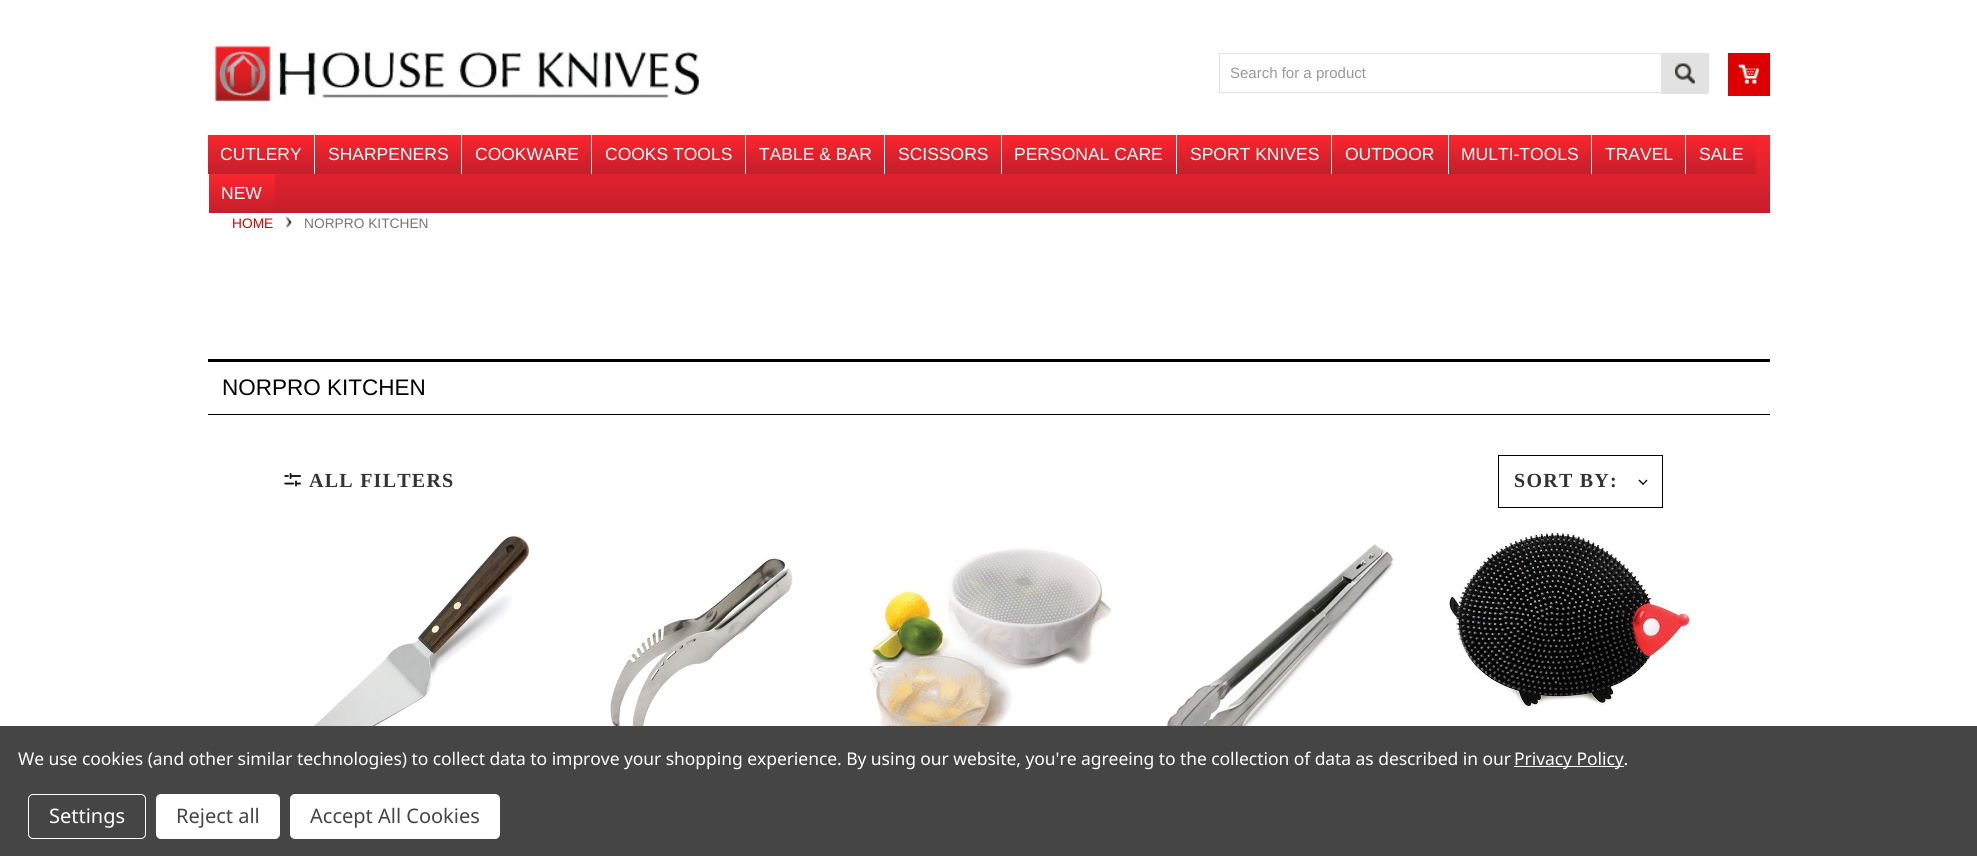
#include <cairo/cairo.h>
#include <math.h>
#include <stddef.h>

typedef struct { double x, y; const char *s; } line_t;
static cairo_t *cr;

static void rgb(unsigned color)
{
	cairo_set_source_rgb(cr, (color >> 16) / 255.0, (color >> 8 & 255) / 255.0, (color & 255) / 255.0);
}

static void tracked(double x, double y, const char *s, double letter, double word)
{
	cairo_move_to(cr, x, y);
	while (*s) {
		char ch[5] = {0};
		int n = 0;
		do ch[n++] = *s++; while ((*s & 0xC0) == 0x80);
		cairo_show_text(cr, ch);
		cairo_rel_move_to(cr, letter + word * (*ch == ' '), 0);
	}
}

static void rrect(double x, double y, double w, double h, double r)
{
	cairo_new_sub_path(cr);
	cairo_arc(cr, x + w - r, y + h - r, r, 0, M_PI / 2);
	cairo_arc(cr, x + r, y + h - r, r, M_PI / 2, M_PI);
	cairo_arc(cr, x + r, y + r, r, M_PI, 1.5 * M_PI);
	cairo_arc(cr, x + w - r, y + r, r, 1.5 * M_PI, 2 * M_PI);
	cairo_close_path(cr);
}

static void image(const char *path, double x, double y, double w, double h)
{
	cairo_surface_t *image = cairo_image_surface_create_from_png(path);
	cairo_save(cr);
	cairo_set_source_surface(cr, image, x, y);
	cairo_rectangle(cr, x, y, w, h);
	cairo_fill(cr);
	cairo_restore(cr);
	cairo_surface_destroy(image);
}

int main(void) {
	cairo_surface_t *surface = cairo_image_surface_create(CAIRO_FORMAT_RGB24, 1977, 856);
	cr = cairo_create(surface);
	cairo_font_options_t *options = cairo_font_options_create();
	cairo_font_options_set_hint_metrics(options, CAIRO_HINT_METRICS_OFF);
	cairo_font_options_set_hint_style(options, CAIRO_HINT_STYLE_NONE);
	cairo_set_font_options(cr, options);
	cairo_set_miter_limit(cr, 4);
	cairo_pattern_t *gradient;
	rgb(0xffffff);
	cairo_paint(cr);
	image("img/1.png", 207, 41, 493, 61);
	cairo_rectangle(cr, 1219.5, 53.5, 489, 39);
	rgb(0xe2e2e2);
	cairo_set_line_width(cr, 1);
	cairo_stroke(cr);
	cairo_rectangle(cr, 1661, 54, 47, 40);
	cairo_fill(cr);
	image("img/2.png", 1675, 63, 20, 21);
	rgb(0xdc0000);
	cairo_rectangle(cr, 1728, 53, 42, 43);
	cairo_fill(cr);
	image("img/3.png", 1738, 64, 21, 20);
	gradient = cairo_pattern_create_linear(989, 135, 989, 213);
	cairo_pattern_add_color_stop_rgba(gradient, 0, 0.988, 0.145, 0.176, 1);
	cairo_pattern_add_color_stop_rgba(gradient, 1, 0.769, 0.118, 0.173, 1);
	cairo_set_source(cr, gradient);
	cairo_pattern_destroy(gradient);
	cairo_rectangle(cr, 275, 135, 1495, 78);
	cairo_fill(cr);
	gradient = cairo_pattern_create_linear(261, 135, 261, 174);
	cairo_pattern_add_color_stop_rgba(gradient, 0, 0.988, 0.145, 0.176, 1);
	cairo_pattern_add_color_stop_rgba(gradient, 1, 0.769, 0.118, 0.173, 1);
	cairo_set_source(cr, gradient);
	cairo_pattern_destroy(gradient);
	cairo_rectangle(cr, 208, 135, 106, 39);
	cairo_fill(cr);
	gradient = cairo_pattern_create_linear(388, 135, 388, 174);
	cairo_pattern_add_color_stop_rgba(gradient, 0, 0.988, 0.145, 0.176, 1);
	cairo_pattern_add_color_stop_rgba(gradient, 1, 0.769, 0.118, 0.173, 1);
	cairo_set_source(cr, gradient);
	cairo_pattern_destroy(gradient);
	cairo_rectangle(cr, 315, 139, 146, 35);
	cairo_fill(cr);
	rgb(0xffffff);
	cairo_rectangle(cr, 314, 135, 1, 39);
	cairo_fill(cr);
	gradient = cairo_pattern_create_linear(527, 135, 527, 174);
	cairo_pattern_add_color_stop_rgba(gradient, 0, 0.988, 0.145, 0.176, 1);
	cairo_pattern_add_color_stop_rgba(gradient, 1, 0.769, 0.118, 0.173, 1);
	cairo_set_source(cr, gradient);
	cairo_pattern_destroy(gradient);
	cairo_rectangle(cr, 462, 139, 129, 35);
	cairo_fill(cr);
	rgb(0xffffff);
	cairo_rectangle(cr, 461, 135, 1, 39);
	cairo_fill(cr);
	gradient = cairo_pattern_create_linear(669, 135, 669, 174);
	cairo_pattern_add_color_stop_rgba(gradient, 0, 0.988, 0.145, 0.176, 1);
	cairo_pattern_add_color_stop_rgba(gradient, 1, 0.769, 0.118, 0.173, 1);
	cairo_set_source(cr, gradient);
	cairo_pattern_destroy(gradient);
	cairo_rectangle(cr, 592, 139, 153, 35);
	cairo_fill(cr);
	rgb(0xffffff);
	cairo_rectangle(cr, 591, 135, 1, 39);
	cairo_fill(cr);
	gradient = cairo_pattern_create_linear(815, 135, 815, 174);
	cairo_pattern_add_color_stop_rgba(gradient, 0, 0.988, 0.145, 0.176, 1);
	cairo_pattern_add_color_stop_rgba(gradient, 1, 0.769, 0.118, 0.173, 1);
	cairo_set_source(cr, gradient);
	cairo_pattern_destroy(gradient);
	cairo_rectangle(cr, 746, 139, 138, 35);
	cairo_fill(cr);
	rgb(0xffffff);
	cairo_rectangle(cr, 745, 135, 1, 39);
	cairo_fill(cr);
	gradient = cairo_pattern_create_linear(943, 135, 943, 174);
	cairo_pattern_add_color_stop_rgba(gradient, 0, 0.988, 0.145, 0.176, 1);
	cairo_pattern_add_color_stop_rgba(gradient, 1, 0.769, 0.118, 0.173, 1);
	cairo_set_source(cr, gradient);
	cairo_pattern_destroy(gradient);
	cairo_rectangle(cr, 885, 139, 116, 35);
	cairo_fill(cr);
	rgb(0xffffff);
	cairo_rectangle(cr, 884, 135, 1, 39);
	cairo_fill(cr);
	gradient = cairo_pattern_create_linear(1089, 135, 1089, 174);
	cairo_pattern_add_color_stop_rgba(gradient, 0, 0.988, 0.145, 0.176, 1);
	cairo_pattern_add_color_stop_rgba(gradient, 1, 0.769, 0.118, 0.173, 1);
	cairo_set_source(cr, gradient);
	cairo_pattern_destroy(gradient);
	cairo_rectangle(cr, 1002, 139, 174, 35);
	cairo_fill(cr);
	rgb(0xffffff);
	cairo_rectangle(cr, 1001, 135, 1, 39);
	cairo_fill(cr);
	gradient = cairo_pattern_create_linear(1254, 135, 1254, 174);
	cairo_pattern_add_color_stop_rgba(gradient, 0, 0.988, 0.145, 0.176, 1);
	cairo_pattern_add_color_stop_rgba(gradient, 1, 0.769, 0.118, 0.173, 1);
	cairo_set_source(cr, gradient);
	cairo_pattern_destroy(gradient);
	cairo_rectangle(cr, 1177, 139, 154, 35);
	cairo_fill(cr);
	rgb(0xffffff);
	cairo_rectangle(cr, 1176, 135, 1, 39);
	cairo_fill(cr);
	gradient = cairo_pattern_create_linear(1390, 135, 1390, 174);
	cairo_pattern_add_color_stop_rgba(gradient, 0, 0.988, 0.145, 0.176, 1);
	cairo_pattern_add_color_stop_rgba(gradient, 1, 0.769, 0.118, 0.173, 1);
	cairo_set_source(cr, gradient);
	cairo_pattern_destroy(gradient);
	cairo_rectangle(cr, 1332, 139, 116, 35);
	cairo_fill(cr);
	rgb(0xffffff);
	cairo_rectangle(cr, 1331, 135, 1, 39);
	cairo_fill(cr);
	gradient = cairo_pattern_create_linear(1520, 135, 1520, 174);
	cairo_pattern_add_color_stop_rgba(gradient, 0, 0.988, 0.145, 0.176, 1);
	cairo_pattern_add_color_stop_rgba(gradient, 1, 0.769, 0.118, 0.173, 1);
	cairo_set_source(cr, gradient);
	cairo_pattern_destroy(gradient);
	cairo_rectangle(cr, 1449, 139, 142, 35);
	cairo_fill(cr);
	rgb(0xffffff);
	cairo_rectangle(cr, 1448, 135, 1, 39);
	cairo_fill(cr);
	gradient = cairo_pattern_create_linear(1639, 135, 1639, 174);
	cairo_pattern_add_color_stop_rgba(gradient, 0, 0.988, 0.145, 0.176, 1);
	cairo_pattern_add_color_stop_rgba(gradient, 1, 0.769, 0.118, 0.173, 1);
	cairo_set_source(cr, gradient);
	cairo_pattern_destroy(gradient);
	cairo_rectangle(cr, 1592, 139, 93, 35);
	cairo_fill(cr);
	rgb(0xffffff);
	cairo_rectangle(cr, 1591, 135, 1, 39);
	cairo_fill(cr);
	gradient = cairo_pattern_create_linear(1721, 135, 1721, 174);
	cairo_pattern_add_color_stop_rgba(gradient, 0, 0.988, 0.145, 0.176, 1);
	cairo_pattern_add_color_stop_rgba(gradient, 1, 0.769, 0.118, 0.173, 1);
	cairo_set_source(cr, gradient);
	cairo_pattern_destroy(gradient);
	cairo_rectangle(cr, 1686, 139, 70, 35);
	cairo_fill(cr);
	rgb(0xffffff);
	cairo_rectangle(cr, 1685, 135, 1, 39);
	cairo_fill(cr);
	gradient = cairo_pattern_create_linear(242, 174, 242, 213);
	cairo_pattern_add_color_stop_rgba(gradient, 0, 0.988, 0.145, 0.176, 1);
	cairo_pattern_add_color_stop_rgba(gradient, 1, 0.769, 0.118, 0.173, 1);
	cairo_set_source(cr, gradient);
	cairo_pattern_destroy(gradient);
	cairo_rectangle(cr, 209, 174, 66, 39);
	cairo_fill(cr);
	image("img/4.png", 286, 217, 6, 11);
	rgb(0x000000);
	cairo_rectangle(cr, 208, 359, 1562, 3);
	cairo_fill(cr);
	cairo_rectangle(cr, 208, 414, 1562, 1);
	cairo_fill(cr);
	image("img/5.png", 284, 473, 17, 14);
	cairo_rectangle(cr, 1498.5, 455.5, 164, 52);
	cairo_stroke(cr);
	cairo_new_path(cr);
	cairo_move_to(cr, 1646.5, 479.5);
	cairo_line_to(cr, 1647.5, 480.5);
	cairo_line_to(cr, 1643, 485);
	cairo_line_to(cr, 1642.5, 484);
	cairo_close_path(cr);
	cairo_fill(cr);
	cairo_new_path(cr);
	cairo_move_to(cr, 1639.5, 479.5);
	cairo_line_to(cr, 1644, 484);
	cairo_line_to(cr, 1643, 485);
	cairo_line_to(cr, 1638.5, 480.5);
	cairo_close_path(cr);
	cairo_fill(cr);
	image("img/6.png", 294, 534, 238, 192);
	image("img/7.png", 610, 557, 183, 169);
	image("img/8.png", 867, 548, 245, 178);
	image("img/9.png", 1159, 544, 236, 182);
	image("img/10.png", 1448, 531, 244, 177);
	rgb(0x454545);
	cairo_rectangle(cr, 0, 726, 1977, 130);
	cairo_fill(cr);
	rgb(0xffffff);
	cairo_rectangle(cr, 1514, 766, 110, 1);
	cairo_fill(cr);
	rrect(28.5, 794.5, 117, 44, 4.5);
	cairo_stroke(cr);
	rrect(156, 794, 124, 45, 5);
	cairo_fill(cr);
	rrect(290, 794, 210, 45, 5);
	cairo_fill(cr);
	cairo_select_font_face(cr, "Liberation Sans", CAIRO_FONT_SLANT_NORMAL, CAIRO_FONT_WEIGHT_NORMAL);
	cairo_set_font_size(cr, 15);
	rgb(0x999999);
	cairo_move_to(cr, 1230, 78);
	cairo_show_text(cr, "Search for a product");
	cairo_set_font_size(cr, 17.5);
	rgb(0xffffff);
	{
		static const line_t items[] = {
			{220, 160, "CUTLERY"},
			{328, 160, "SHARPENERS"},
			{475, 160, "COOKWARE"},
			{605, 160, "COOKS TOOLS"},
			{759, 160, "TABLE & BAR"},
			{898, 160, "SCISSORS"},
			{1014, 160, "PERSONAL CARE"},
			{1190, 160, "SPORT KNIVES"},
			{1345, 160, "OUTDOOR"},
			{1461, 160, "MULTI-TOOLS"},
			{1605, 160, "TRAVEL"},
			{1699, 160, "SALE"},
			{221, 199, "NEW"},
		};
		for (size_t i = 0; i < sizeof items / sizeof *items; i++) {
			cairo_move_to(cr, items[i].x, items[i].y);
			cairo_show_text(cr, items[i].s);
		}
	}
	cairo_set_font_size(cr, 13.75);
	rgb(0xdc0000);
	cairo_move_to(cr, 232, 228);
	cairo_show_text(cr, "HOME");
	rgb(0x757575);
	cairo_move_to(cr, 304, 228);
	cairo_show_text(cr, "NORPRO KITCHEN");
	cairo_set_font_size(cr, 22.5);
	rgb(0x000000);
	cairo_move_to(cr, 222, 395);
	cairo_show_text(cr, "NORPRO KITCHEN");
	cairo_select_font_face(cr, "Liberation Serif", CAIRO_FONT_SLANT_NORMAL, CAIRO_FONT_WEIGHT_BOLD);
	cairo_set_font_size(cr, 20);
	rgb(0x333333);
	tracked(309, 487, "ALL FILTERS", 1.25, 0);
	tracked(1514, 487, "SORT BY:", 1.25, 0);
	cairo_select_font_face(cr, "Noto Sans", CAIRO_FONT_SLANT_NORMAL, CAIRO_FONT_WEIGHT_NORMAL);
	cairo_set_font_size(cr, 17.5);
	rgb(0xffffff);
	tracked(18, 765, "We use cookies (and other similar technologies) to collect data to improve your shopping experience. By using our website, you're agreeing to the collection of data as described in our", -0.06, 0);
	tracked(1514, 765, "Privacy Policy.", -0.06, 0);
	cairo_set_font_size(cr, 20);
	cairo_move_to(cr, 49, 823);
	cairo_show_text(cr, "Settings");
	rgb(0x454545);
	cairo_move_to(cr, 176, 823);
	cairo_show_text(cr, "Reject all");
	cairo_move_to(cr, 310, 823);
	cairo_show_text(cr, "Accept All Cookies");
	cairo_surface_write_to_png(surface, "page.png");
	cairo_font_options_destroy(options);
	cairo_destroy(cr);
	cairo_surface_destroy(surface);
	return 0;
}
